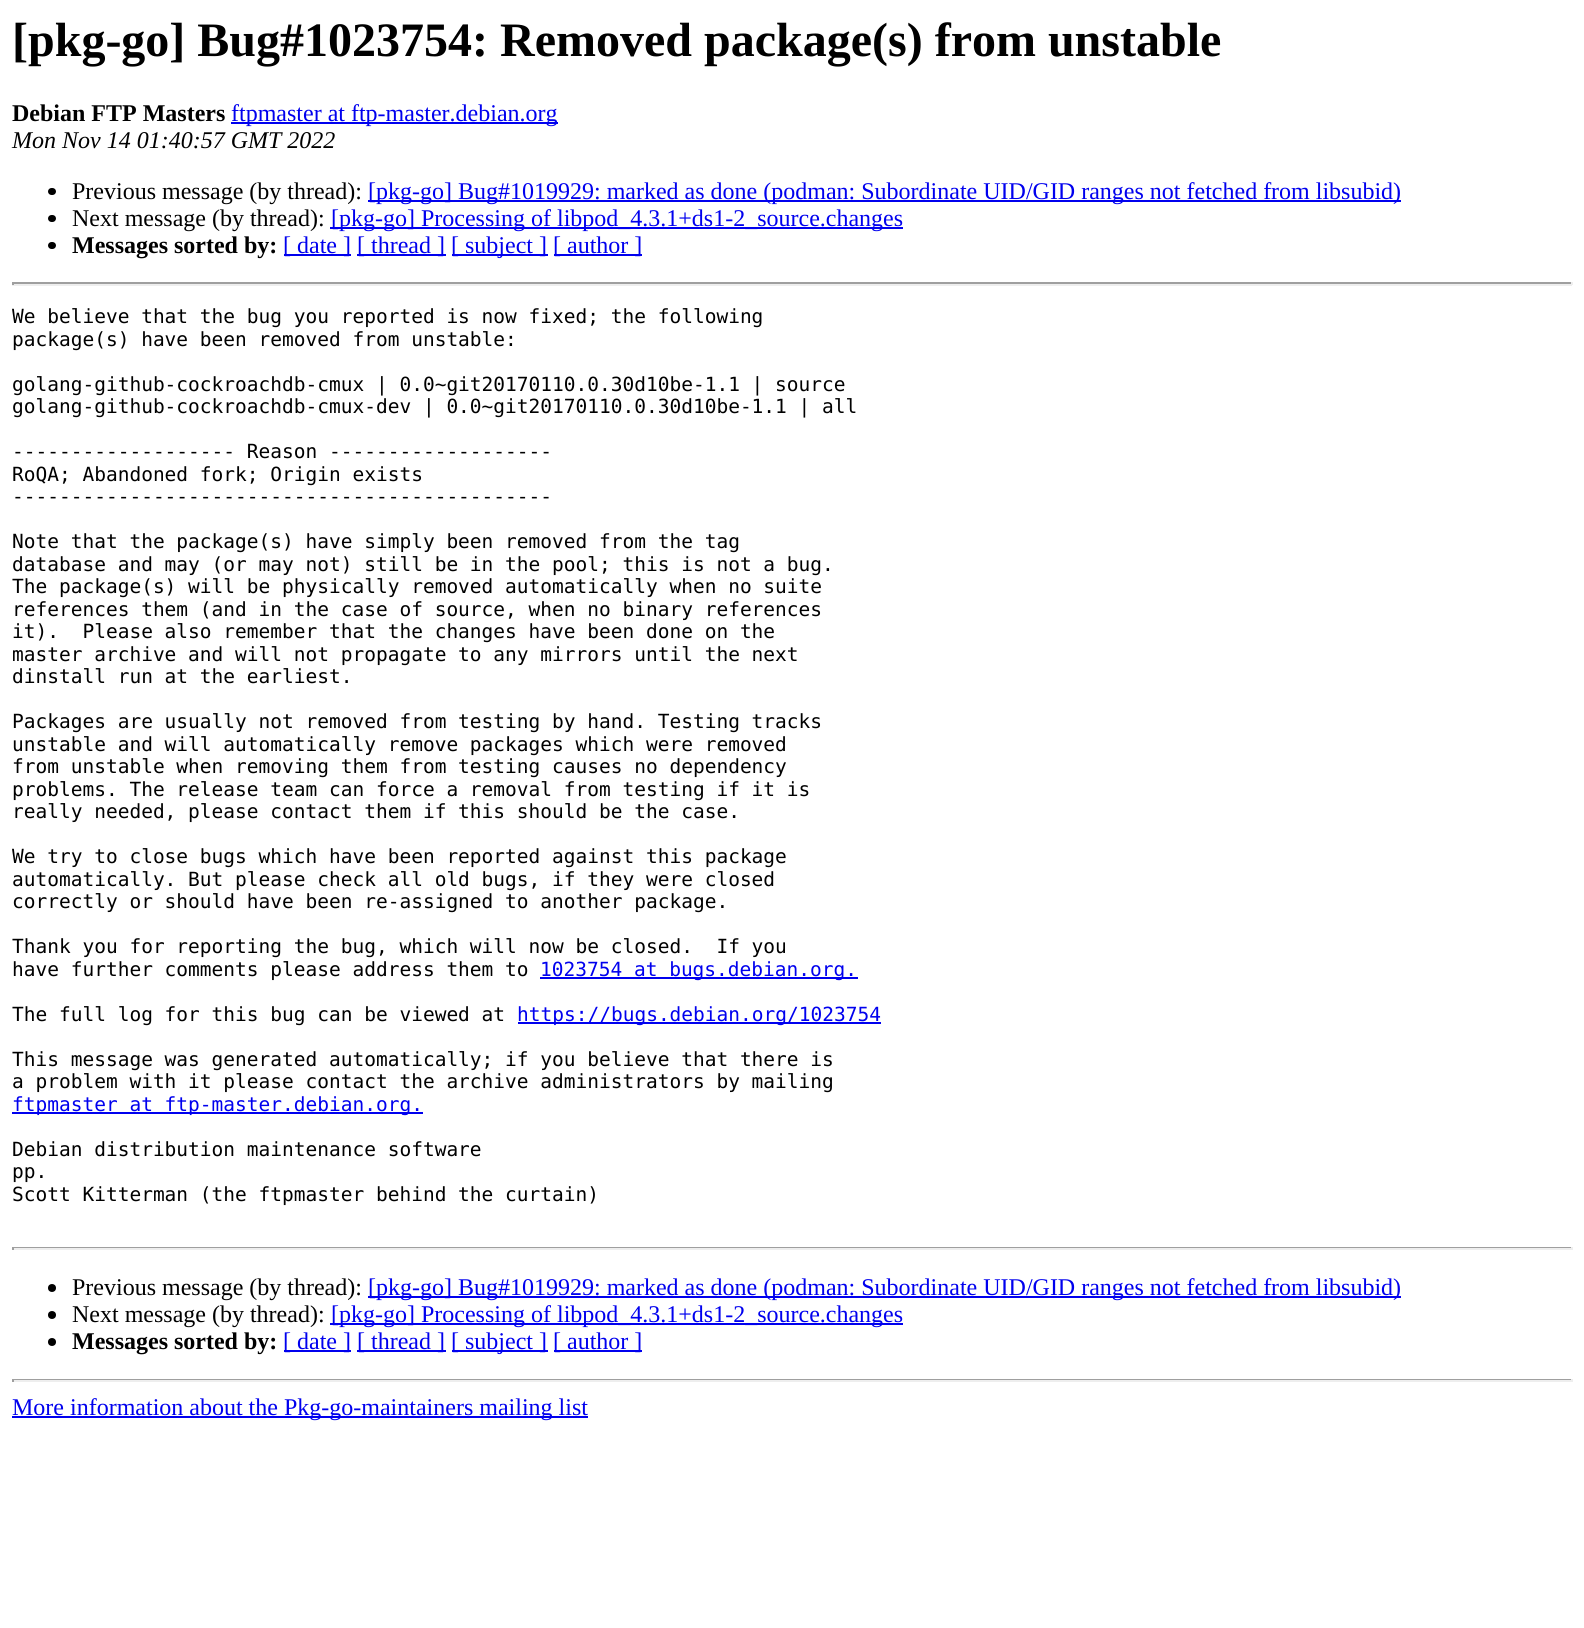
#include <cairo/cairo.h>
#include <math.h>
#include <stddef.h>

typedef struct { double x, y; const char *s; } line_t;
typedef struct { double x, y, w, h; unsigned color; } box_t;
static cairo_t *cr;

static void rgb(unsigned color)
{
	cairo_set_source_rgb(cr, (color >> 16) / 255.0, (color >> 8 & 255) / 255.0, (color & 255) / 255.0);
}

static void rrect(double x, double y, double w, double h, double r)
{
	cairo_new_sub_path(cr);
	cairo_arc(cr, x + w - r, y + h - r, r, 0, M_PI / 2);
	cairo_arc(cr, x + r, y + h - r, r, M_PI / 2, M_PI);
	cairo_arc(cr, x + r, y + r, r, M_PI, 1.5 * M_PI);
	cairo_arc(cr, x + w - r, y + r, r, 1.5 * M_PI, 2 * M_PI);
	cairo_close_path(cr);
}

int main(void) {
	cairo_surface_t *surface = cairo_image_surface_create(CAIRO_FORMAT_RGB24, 1584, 1628);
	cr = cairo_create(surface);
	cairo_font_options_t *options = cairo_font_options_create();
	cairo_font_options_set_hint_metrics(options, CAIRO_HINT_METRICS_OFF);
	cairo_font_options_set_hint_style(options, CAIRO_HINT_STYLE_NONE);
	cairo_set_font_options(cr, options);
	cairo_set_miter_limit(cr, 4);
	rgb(0xffffff);
	cairo_paint(cr);
	rgb(0x0000ee);
	cairo_rectangle(cr, 231, 122, 327, 2);
	cairo_fill(cr);
	rgb(0x000000);
	rrect(48, 188, 8, 7, 3.5);
	cairo_fill(cr);
	rgb(0x0000ee);
	cairo_rectangle(cr, 368, 200, 1033, 2);
	cairo_fill(cr);
	rgb(0x000000);
	rrect(48, 215, 8, 7, 3.5);
	cairo_fill(cr);
	rgb(0x0000ee);
	cairo_rectangle(cr, 330, 227, 573, 2);
	cairo_fill(cr);
	rgb(0x000000);
	rrect(48, 242, 8, 7, 3.5);
	cairo_fill(cr);
	{
		static const box_t items[] = {
			{284, 254, 67, 2, 0x0000ee},
			{357, 254, 89, 2, 0x0000ee},
			{452, 254, 96, 2, 0x0000ee},
			{554, 254, 88, 2, 0x0000ee},
			{12, 282, 1560, 2, 0x9f9f9f},
			{1571, 282, 2, 3, 0xeeeeee},
			{12, 284, 1560, 2, 0xeeeeee},
			{12, 282, 2, 3, 0x9f9f9f},
			{540, 977, 318, 2, 0x0000ee},
			{518, 1022, 363, 2, 0x0000ee},
			{12, 1112, 411, 2, 0x0000ee},
			{12, 1247, 1560, 1, 0x9f9f9f},
			{1571, 1247, 2, 3, 0xeeeeee},
			{12, 1248, 1560, 2, 0xeeeeee},
			{12, 1247, 2, 3, 0x9f9f9f},
		};
		for (size_t i = 0; i < sizeof items / sizeof *items; i++) {
			rgb(items[i].color);
			cairo_rectangle(cr, items[i].x, items[i].y, items[i].w, items[i].h);
			cairo_fill(cr);
		}
	}
	rgb(0x000000);
	cairo_arc(cr, 52, 1288, 4, 0, 2 * M_PI);
	cairo_fill(cr);
	rgb(0x0000ee);
	cairo_rectangle(cr, 368, 1296, 1033, 2);
	cairo_fill(cr);
	rgb(0x000000);
	cairo_arc(cr, 52, 1315, 4, 0, 2 * M_PI);
	cairo_fill(cr);
	rgb(0x0000ee);
	cairo_rectangle(cr, 330, 1323, 573, 2);
	cairo_fill(cr);
	rgb(0x000000);
	cairo_arc(cr, 52, 1342, 4, 0, 2 * M_PI);
	cairo_fill(cr);
	{
		static const box_t items[] = {
			{284, 1350, 67, 2, 0x0000ee},
			{357, 1350, 89, 2, 0x0000ee},
			{452, 1350, 96, 2, 0x0000ee},
			{554, 1350, 88, 2, 0x0000ee},
			{12, 1379, 1560, 1, 0x9f9f9f},
			{1571, 1379, 2, 3, 0xeeeeee},
			{12, 1380, 1560, 2, 0xeeeeee},
			{12, 1379, 2, 3, 0x9f9f9f},
			{12, 1416, 576, 2, 0x0000ee},
		};
		for (size_t i = 0; i < sizeof items / sizeof *items; i++) {
			rgb(items[i].color);
			cairo_rectangle(cr, items[i].x, items[i].y, items[i].w, items[i].h);
			cairo_fill(cr);
		}
	}
	cairo_select_font_face(cr, "Liberation Serif", CAIRO_FONT_SLANT_NORMAL, CAIRO_FONT_WEIGHT_BOLD);
	cairo_set_font_size(cr, 48);
	rgb(0x000000);
	cairo_move_to(cr, 12, 56);
	cairo_show_text(cr, "[pkg-go] Bug#1023754: Removed package(s) from unstable");
	cairo_set_font_size(cr, 24);
	cairo_move_to(cr, 12, 121);
	cairo_show_text(cr, "Debian FTP Masters");
	cairo_select_font_face(cr, "Liberation Serif", CAIRO_FONT_SLANT_NORMAL, CAIRO_FONT_WEIGHT_NORMAL);
	rgb(0x0000ee);
	cairo_move_to(cr, 231, 121);
	cairo_show_text(cr, "ftpmaster at ftp-master.debian.org");
	cairo_select_font_face(cr, "Liberation Serif", CAIRO_FONT_SLANT_ITALIC, CAIRO_FONT_WEIGHT_NORMAL);
	rgb(0x000000);
	cairo_move_to(cr, 12, 148);
	cairo_show_text(cr, "Mon Nov 14 01:40:57 GMT 2022");
	cairo_select_font_face(cr, "Liberation Serif", CAIRO_FONT_SLANT_NORMAL, CAIRO_FONT_WEIGHT_NORMAL);
	cairo_move_to(cr, 72, 199);
	cairo_show_text(cr, "Previous message (by thread):");
	rgb(0x0000ee);
	cairo_move_to(cr, 368, 199);
	cairo_show_text(cr, "[pkg-go] Bug#1019929: marked as done (podman: Subordinate UID/GID ranges not fetched from libsubid)");
	rgb(0x000000);
	cairo_move_to(cr, 72, 226);
	cairo_show_text(cr, "Next message (by thread):");
	rgb(0x0000ee);
	cairo_move_to(cr, 331, 226);
	cairo_show_text(cr, "[pkg-go] Processing of libpod_4.3.1+ds1-2_source.changes");
	cairo_select_font_face(cr, "Liberation Serif", CAIRO_FONT_SLANT_NORMAL, CAIRO_FONT_WEIGHT_BOLD);
	rgb(0x000000);
	cairo_move_to(cr, 72, 253);
	cairo_show_text(cr, "Messages sorted by:");
	cairo_select_font_face(cr, "Liberation Serif", CAIRO_FONT_SLANT_NORMAL, CAIRO_FONT_WEIGHT_NORMAL);
	rgb(0x0000ee);
	{
		static const line_t items[] = {
			{283, 253, "[ date ]"},
			{357, 253, "[ thread ]"},
			{451, 253, "[ subject ]"},
			{553, 253, "[ author ]"},
		};
		for (size_t i = 0; i < sizeof items / sizeof *items; i++) {
			cairo_move_to(cr, items[i].x, items[i].y);
			cairo_show_text(cr, items[i].s);
		}
	}
	cairo_select_font_face(cr, "DejaVu Sans Mono", CAIRO_FONT_SLANT_NORMAL, CAIRO_FONT_WEIGHT_NORMAL);
	cairo_set_font_size(cr, 19.5);
	rgb(0x000000);
	{
		static const line_t items[] = {
			{12, 323, "We believe that the bug you reported is now fixed; the following"},
			{12, 346, "package(s) have been removed from unstable:"},
			{12, 391, "golang-github-cockroachdb-cmux | 0.0~git20170110.0.30d10be-1.1 | source"},
			{12, 413, "golang-github-cockroachdb-cmux-dev | 0.0~git20170110.0.30d10be-1.1 | all"},
			{12, 458, "------------------- Reason -------------------"},
			{12, 481, "RoQA; Abandoned fork; Origin exists"},
			{12, 503, "----------------------------------------------"},
			{12, 548, "Note that the package(s) have simply been removed from the tag"},
			{12, 571, "database and may (or may not) still be in the pool; this is not a bug."},
			{12, 593, "The package(s) will be physically removed automatically when no suite"},
			{12, 616, "references them (and in the case of source, when no binary references"},
			{12, 638, "it).  Please also remember that the changes have been done on the"},
			{12, 661, "master archive and will not propagate to any mirrors until the next"},
			{12, 683, "dinstall run at the earliest."},
			{12, 728, "Packages are usually not removed from testing by hand. Testing tracks"},
			{12, 751, "unstable and will automatically remove packages which were removed"},
			{12, 773, "from unstable when removing them from testing causes no dependency"},
			{12, 796, "problems. The release team can force a removal from testing if it is"},
			{12, 818, "really needed, please contact them if this should be the case."},
			{12, 863, "We try to close bugs which have been reported against this package"},
			{12, 886, "automatically. But please check all old bugs, if they were closed"},
			{12, 908, "correctly or should have been re-assigned to another package."},
			{12, 953, "Thank you for reporting the bug, which will now be closed.  If you"},
			{12, 976, "have further comments please address them to"},
		};
		for (size_t i = 0; i < sizeof items / sizeof *items; i++) {
			cairo_move_to(cr, items[i].x, items[i].y);
			cairo_show_text(cr, items[i].s);
		}
	}
	rgb(0x0000ee);
	cairo_move_to(cr, 540, 976);
	cairo_show_text(cr, "1023754 at bugs.debian.org.");
	rgb(0x000000);
	cairo_move_to(cr, 12, 1021);
	cairo_show_text(cr, "The full log for this bug can be viewed at");
	rgb(0x0000ee);
	cairo_move_to(cr, 517, 1021);
	cairo_show_text(cr, "https://bugs.debian.org/1023754");
	rgb(0x000000);
	cairo_move_to(cr, 12, 1066);
	cairo_show_text(cr, "This message was generated automatically; if you believe that there is");
	cairo_move_to(cr, 12, 1088);
	cairo_show_text(cr, "a problem with it please contact the archive administrators by mailing");
	rgb(0x0000ee);
	cairo_move_to(cr, 12, 1111);
	cairo_show_text(cr, "ftpmaster at ftp-master.debian.org.");
	rgb(0x000000);
	{
		static const line_t items[] = {
			{12, 1156, "Debian distribution maintenance software"},
			{12, 1178, "pp."},
			{12, 1201, "Scott Kitterman (the ftpmaster behind the curtain)"},
		};
		for (size_t i = 0; i < sizeof items / sizeof *items; i++) {
			cairo_move_to(cr, items[i].x, items[i].y);
			cairo_show_text(cr, items[i].s);
		}
	}
	cairo_select_font_face(cr, "Liberation Serif", CAIRO_FONT_SLANT_NORMAL, CAIRO_FONT_WEIGHT_NORMAL);
	cairo_set_font_size(cr, 24);
	cairo_move_to(cr, 72, 1295);
	cairo_show_text(cr, "Previous message (by thread):");
	rgb(0x0000ee);
	cairo_move_to(cr, 368, 1295);
	cairo_show_text(cr, "[pkg-go] Bug#1019929: marked as done (podman: Subordinate UID/GID ranges not fetched from libsubid)");
	rgb(0x000000);
	cairo_move_to(cr, 72, 1322);
	cairo_show_text(cr, "Next message (by thread):");
	rgb(0x0000ee);
	cairo_move_to(cr, 331, 1322);
	cairo_show_text(cr, "[pkg-go] Processing of libpod_4.3.1+ds1-2_source.changes");
	cairo_select_font_face(cr, "Liberation Serif", CAIRO_FONT_SLANT_NORMAL, CAIRO_FONT_WEIGHT_BOLD);
	rgb(0x000000);
	cairo_move_to(cr, 72, 1349);
	cairo_show_text(cr, "Messages sorted by:");
	cairo_select_font_face(cr, "Liberation Serif", CAIRO_FONT_SLANT_NORMAL, CAIRO_FONT_WEIGHT_NORMAL);
	rgb(0x0000ee);
	{
		static const line_t items[] = {
			{283, 1349, "[ date ]"},
			{357, 1349, "[ thread ]"},
			{451, 1349, "[ subject ]"},
			{553, 1349, "[ author ]"},
			{12, 1415, "More information about the Pkg-go-maintainers mailing list"},
		};
		for (size_t i = 0; i < sizeof items / sizeof *items; i++) {
			cairo_move_to(cr, items[i].x, items[i].y);
			cairo_show_text(cr, items[i].s);
		}
	}
	cairo_surface_write_to_png(surface, "page.png");
	cairo_font_options_destroy(options);
	cairo_destroy(cr);
	cairo_surface_destroy(surface);
	return 0;
}
